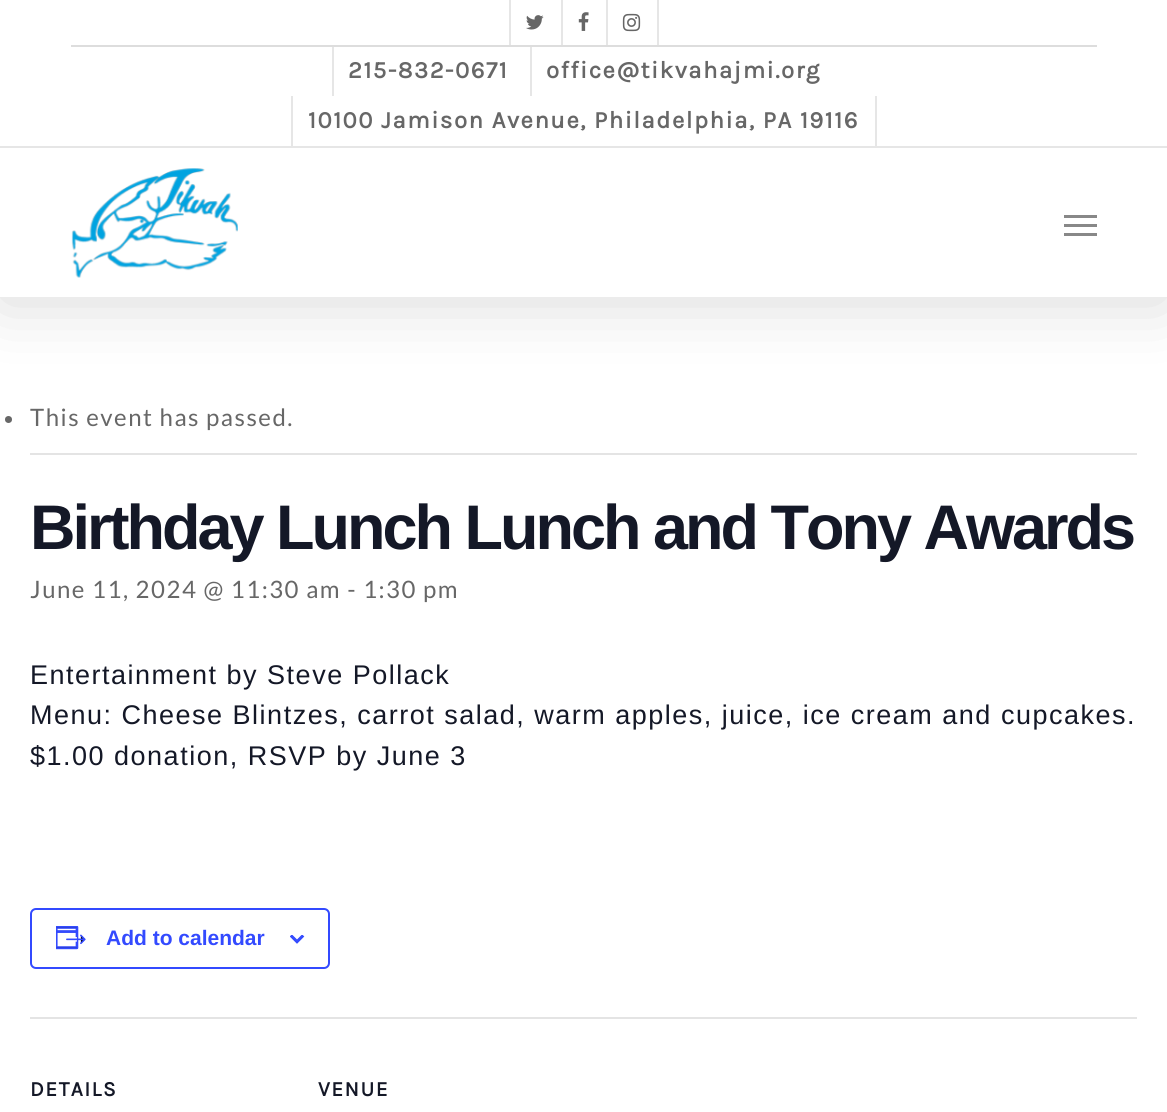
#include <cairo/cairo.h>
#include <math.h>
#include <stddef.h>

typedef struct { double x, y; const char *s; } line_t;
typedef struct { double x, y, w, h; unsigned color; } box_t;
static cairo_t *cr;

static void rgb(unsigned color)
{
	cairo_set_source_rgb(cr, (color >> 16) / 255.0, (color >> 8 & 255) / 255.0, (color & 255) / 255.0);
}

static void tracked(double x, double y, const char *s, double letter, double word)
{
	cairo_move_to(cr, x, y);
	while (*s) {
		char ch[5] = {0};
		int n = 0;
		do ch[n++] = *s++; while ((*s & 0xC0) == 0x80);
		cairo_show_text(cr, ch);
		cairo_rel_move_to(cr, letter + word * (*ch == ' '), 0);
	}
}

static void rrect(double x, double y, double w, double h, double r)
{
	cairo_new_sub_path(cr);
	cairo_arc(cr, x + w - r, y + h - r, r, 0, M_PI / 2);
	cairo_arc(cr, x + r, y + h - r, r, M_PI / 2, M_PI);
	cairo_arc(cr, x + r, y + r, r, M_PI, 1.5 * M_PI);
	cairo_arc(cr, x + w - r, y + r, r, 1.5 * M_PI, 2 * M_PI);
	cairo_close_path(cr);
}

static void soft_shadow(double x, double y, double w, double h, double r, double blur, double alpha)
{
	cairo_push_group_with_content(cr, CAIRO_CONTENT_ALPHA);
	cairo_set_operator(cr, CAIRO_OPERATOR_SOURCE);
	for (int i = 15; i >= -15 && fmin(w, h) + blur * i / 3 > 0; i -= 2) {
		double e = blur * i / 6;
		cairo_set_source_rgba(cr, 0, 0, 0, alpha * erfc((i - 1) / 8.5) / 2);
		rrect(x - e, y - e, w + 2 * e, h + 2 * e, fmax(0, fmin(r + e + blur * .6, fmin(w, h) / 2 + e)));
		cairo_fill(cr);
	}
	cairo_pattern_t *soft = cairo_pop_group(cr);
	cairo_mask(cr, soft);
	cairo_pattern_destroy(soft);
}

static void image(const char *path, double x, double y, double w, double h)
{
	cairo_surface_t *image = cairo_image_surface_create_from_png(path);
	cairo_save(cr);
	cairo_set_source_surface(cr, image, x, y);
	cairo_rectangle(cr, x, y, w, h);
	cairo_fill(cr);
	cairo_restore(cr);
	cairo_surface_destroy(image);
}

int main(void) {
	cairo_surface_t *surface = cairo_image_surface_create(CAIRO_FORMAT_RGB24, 1167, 1112);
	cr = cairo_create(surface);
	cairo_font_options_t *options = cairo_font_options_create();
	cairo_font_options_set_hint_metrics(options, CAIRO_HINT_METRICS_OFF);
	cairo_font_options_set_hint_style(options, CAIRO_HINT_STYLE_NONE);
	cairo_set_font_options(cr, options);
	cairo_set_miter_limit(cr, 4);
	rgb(0xffffff);
	cairo_paint(cr);
	rgb(0x000000);
	soft_shadow(0, 5, 1167, 297, 0, 34, 0.15);
	{
		static const box_t items[] = {
			{0, 0, 1167, 297, 0xffffff},
			{0, 146, 1167, 2, 0xe6e6e6},
			{509, 0, 2, 45, 0xe6e6e6},
		};
		for (size_t i = 0; i < sizeof items / sizeof *items; i++) {
			rgb(items[i].color);
			cairo_rectangle(cr, items[i].x, items[i].y, items[i].w, items[i].h);
			cairo_fill(cr);
		}
	}
	image("img/1.png", 526, 15, 18, 15);
	cairo_rectangle(cr, 561, 0, 2, 45);
	cairo_fill(cr);
	image("img/2.png", 578, 12, 11, 19);
	cairo_rectangle(cr, 657, 0, 2, 45);
	cairo_fill(cr);
	cairo_rectangle(cr, 606, 0, 2, 45);
	cairo_fill(cr);
	image("img/3.png", 622, 13, 19, 19);
	{
		static const box_t items[] = {
			{71, 45, 1026, 2, 0xdddddd},
			{332, 47, 2, 49, 0xe6e6e6},
			{530, 47, 2, 49, 0xe6e6e6},
			{875, 96, 2, 50, 0xe6e6e6},
			{291, 96, 2, 50, 0xe6e6e6},
		};
		for (size_t i = 0; i < sizeof items / sizeof *items; i++) {
			rgb(items[i].color);
			cairo_rectangle(cr, items[i].x, items[i].y, items[i].w, items[i].h);
			cairo_fill(cr);
		}
	}
	image("img/4.png", 71, 168, 167, 110);
	{
		static const box_t items[] = {
			{1064, 215, 33, 3, 0x888888},
			{1064, 233, 33, 3, 0x888888},
			{1064, 224, 33, 3, 0x888888},
			{30, 453, 1107, 2, 0xe4e4e4},
		};
		for (size_t i = 0; i < sizeof items / sizeof *items; i++) {
			rgb(items[i].color);
			cairo_rectangle(cr, items[i].x, items[i].y, items[i].w, items[i].h);
			cairo_fill(cr);
		}
	}
	rgb(0x676767);
	cairo_arc(cr, 8.5, 419.5, 3.5, 0, 2 * M_PI);
	cairo_fill(cr);
	rrect(31, 909, 298, 59, 5);
	rgb(0x334aff);
	cairo_stroke(cr);
	image("img/5.png", 56, 926, 30, 24);
	image("img/6.png", 290, 935, 15, 9);
	rgb(0xe4e4e4);
	cairo_rectangle(cr, 30, 1017, 1107, 2);
	cairo_fill(cr);
	cairo_select_font_face(cr, "Karla", CAIRO_FONT_SLANT_NORMAL, CAIRO_FONT_WEIGHT_BOLD);
	cairo_set_font_size(cr, 24);
	rgb(0x676767);
	{
		static const line_t items[] = {
			{348, 78, "215-832-0671"},
			{546, 78, "office@tikvahajmi.org"},
			{308, 128, "10100 Jamison Avenue, Philadelphia, PA 19116"},
		};
		for (size_t i = 0; i < sizeof items / sizeof *items; i++) {
			tracked(items[i].x, items[i].y, items[i].s, 1.5, 0);
		}
	}
	cairo_select_font_face(cr, "Lato", CAIRO_FONT_SLANT_NORMAL, CAIRO_FONT_WEIGHT_NORMAL);
	tracked(30, 426, "This event has passed.", 1.5, 0);
	cairo_select_font_face(cr, "Liberation Sans", CAIRO_FONT_SLANT_NORMAL, CAIRO_FONT_WEIGHT_BOLD);
	cairo_set_font_size(cr, 63);
	rgb(0x141827);
	tracked(30, 549, "Birthday Lunch Lunch and Tony Awards", -3, 0);
	cairo_select_font_face(cr, "Lato", CAIRO_FONT_SLANT_NORMAL, CAIRO_FONT_WEIGHT_NORMAL);
	cairo_set_font_size(cr, 24);
	rgb(0x676767);
	tracked(30, 598, "June 11, 2024 @ 11:30 am - 1:30 pm", 1.5, 0);
	cairo_select_font_face(cr, "Liberation Sans", CAIRO_FONT_SLANT_NORMAL, CAIRO_FONT_WEIGHT_NORMAL);
	cairo_set_font_size(cr, 27);
	rgb(0x141827);
	{
		static const line_t items[] = {
			{30, 684, "Entertainment by Steve Pollack"},
			{30, 724, "Menu: Cheese Blintzes, carrot salad, warm apples, juice, ice cream and cupcakes."},
			{30, 765, "$1.00 donation, RSVP by June 3"},
		};
		for (size_t i = 0; i < sizeof items / sizeof *items; i++) {
			tracked(items[i].x, items[i].y, items[i].s, 1.5, 0);
		}
	}
	cairo_select_font_face(cr, "Liberation Sans", CAIRO_FONT_SLANT_NORMAL, CAIRO_FONT_WEIGHT_BOLD);
	cairo_set_font_size(cr, 21);
	rgb(0x334aff);
	cairo_move_to(cr, 106, 945);
	cairo_show_text(cr, "Add to calendar");
	cairo_select_font_face(cr, "Karla", CAIRO_FONT_SLANT_NORMAL, CAIRO_FONT_WEIGHT_BOLD);
	rgb(0x141827);
	tracked(30, 1096, "DETAILS", 1.5, 0);
	tracked(318, 1096, "VENUE", 1.5, 0);
	cairo_surface_write_to_png(surface, "page.png");
	cairo_font_options_destroy(options);
	cairo_destroy(cr);
	cairo_surface_destroy(surface);
	return 0;
}
